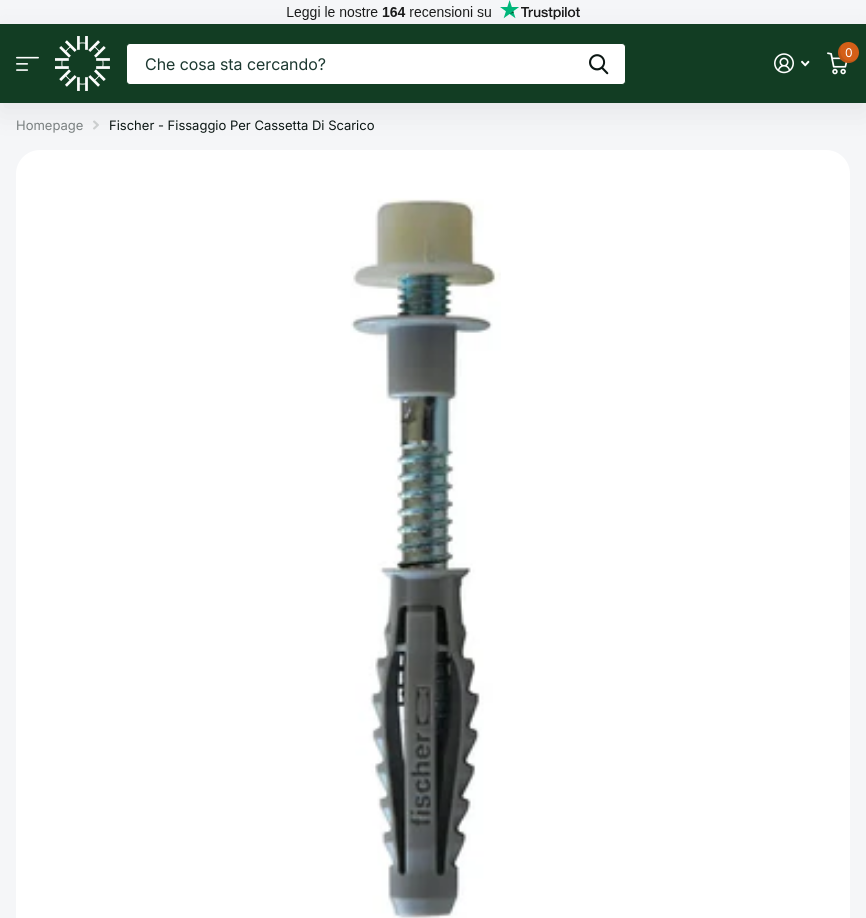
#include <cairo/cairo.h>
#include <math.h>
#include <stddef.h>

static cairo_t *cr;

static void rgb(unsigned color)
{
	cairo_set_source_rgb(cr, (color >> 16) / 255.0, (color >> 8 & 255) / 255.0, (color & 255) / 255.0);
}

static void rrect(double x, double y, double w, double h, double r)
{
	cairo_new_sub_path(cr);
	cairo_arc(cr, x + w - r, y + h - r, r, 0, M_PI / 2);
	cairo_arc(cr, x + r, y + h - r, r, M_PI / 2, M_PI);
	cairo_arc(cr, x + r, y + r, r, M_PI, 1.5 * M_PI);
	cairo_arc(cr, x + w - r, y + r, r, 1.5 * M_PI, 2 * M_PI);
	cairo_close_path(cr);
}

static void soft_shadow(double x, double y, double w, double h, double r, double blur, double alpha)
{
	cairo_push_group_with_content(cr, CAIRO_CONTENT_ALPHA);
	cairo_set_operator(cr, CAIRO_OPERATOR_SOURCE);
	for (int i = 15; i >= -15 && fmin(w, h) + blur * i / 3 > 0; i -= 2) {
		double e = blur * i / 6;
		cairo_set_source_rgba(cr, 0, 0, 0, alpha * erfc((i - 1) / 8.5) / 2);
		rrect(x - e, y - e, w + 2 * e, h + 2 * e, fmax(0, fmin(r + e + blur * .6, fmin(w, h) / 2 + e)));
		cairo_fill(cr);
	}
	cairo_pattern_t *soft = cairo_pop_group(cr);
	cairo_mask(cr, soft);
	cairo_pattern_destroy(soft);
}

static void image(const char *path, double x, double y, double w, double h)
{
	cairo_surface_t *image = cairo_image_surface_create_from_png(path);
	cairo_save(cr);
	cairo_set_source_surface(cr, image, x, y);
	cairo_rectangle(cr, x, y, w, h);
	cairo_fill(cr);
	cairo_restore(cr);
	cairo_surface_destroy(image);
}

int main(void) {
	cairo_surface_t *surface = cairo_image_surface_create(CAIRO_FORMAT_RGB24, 866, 918);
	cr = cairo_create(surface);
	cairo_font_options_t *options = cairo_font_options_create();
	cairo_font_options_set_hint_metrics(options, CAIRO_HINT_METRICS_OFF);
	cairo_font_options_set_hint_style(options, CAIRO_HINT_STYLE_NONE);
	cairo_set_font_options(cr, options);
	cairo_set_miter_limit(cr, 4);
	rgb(0xf5f6f8);
	cairo_paint(cr);
	image("img/8.png", 93, 120, 6, 10);
	rgb(0xffffff);
	rrect(16, 150, 834, 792, 24);
	cairo_fill(cr);
	rgb(0x000000);
	soft_shadow(0, 33, 866, 79, 0, 16, 0.07);
	image("img/1.png", 287, 0, 293, 20);
	rgb(0x123d23);
	cairo_rectangle(cr, 0, 24, 866, 79);
	cairo_fill(cr);
	image("img/2.png", 55, 36, 55, 55);
	image("img/3.png", 774, 53, 20, 21);
	image("img/4.png", 801, 60, 9, 7);
	image("img/5.png", 827, 52, 21, 23);
	rgb(0xd45f17);
	cairo_arc(cr, 848.5, 52.5, 10.5, 0, 2 * M_PI);
	cairo_fill(cr);
	cairo_set_source_rgba(cr, 0, 0, 0, 0.1);
	cairo_new_path(cr);
	cairo_move_to(cr, 857, 58.5);
	cairo_curve_to(cr, 855.5, 60, 853, 61, 850, 61);
	cairo_curve_to(cr, 841, 61, 838, 50.5, 842, 44.5);
	cairo_curve_to(cr, 837, 48, 836.5, 55.5, 841, 60);
	cairo_curve_to(cr, 845.5, 64.5, 853.5, 64, 857, 58.5);
	cairo_close_path(cr);
	cairo_fill(cr);
	image("img/6.png", 16, 56, 23, 15);
	rgb(0xffffff);
	rrect(126.5, 43.5, 499, 41, 3.5);
	cairo_fill_preserve(cr);
	rgb(0x123d23);
	cairo_set_line_width(cr, 1);
	cairo_stroke(cr);
	image("img/7.png", 589, 54, 20, 21);
	image("img/9.png", 350, 198, 151, 720);
	cairo_select_font_face(cr, "Inter", CAIRO_FONT_SLANT_NORMAL, CAIRO_FONT_WEIGHT_NORMAL);
	cairo_set_font_size(cr, 12);
	rgb(0xffffff);
	cairo_move_to(cr, 845, 57);
	cairo_show_text(cr, "0");
	cairo_select_font_face(cr, "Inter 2", CAIRO_FONT_SLANT_NORMAL, CAIRO_FONT_WEIGHT_NORMAL);
	cairo_set_font_size(cr, 16);
	rgb(0x1c3830);
	cairo_move_to(cr, 145, 70);
	cairo_show_text(cr, "Che cosa sta cercando?");
	cairo_select_font_face(cr, "Inter", CAIRO_FONT_SLANT_NORMAL, CAIRO_FONT_WEIGHT_NORMAL);
	cairo_set_font_size(cr, 13);
	rgb(0x797f7f);
	cairo_move_to(cr, 16, 130);
	cairo_show_text(cr, "Homepage");
	rgb(0x0b1613);
	cairo_move_to(cr, 109, 130);
	cairo_show_text(cr, "Fischer - Fissaggio Per Cassetta Di Scarico");
	cairo_surface_write_to_png(surface, "page.png");
	cairo_font_options_destroy(options);
	cairo_destroy(cr);
	cairo_surface_destroy(surface);
	return 0;
}
